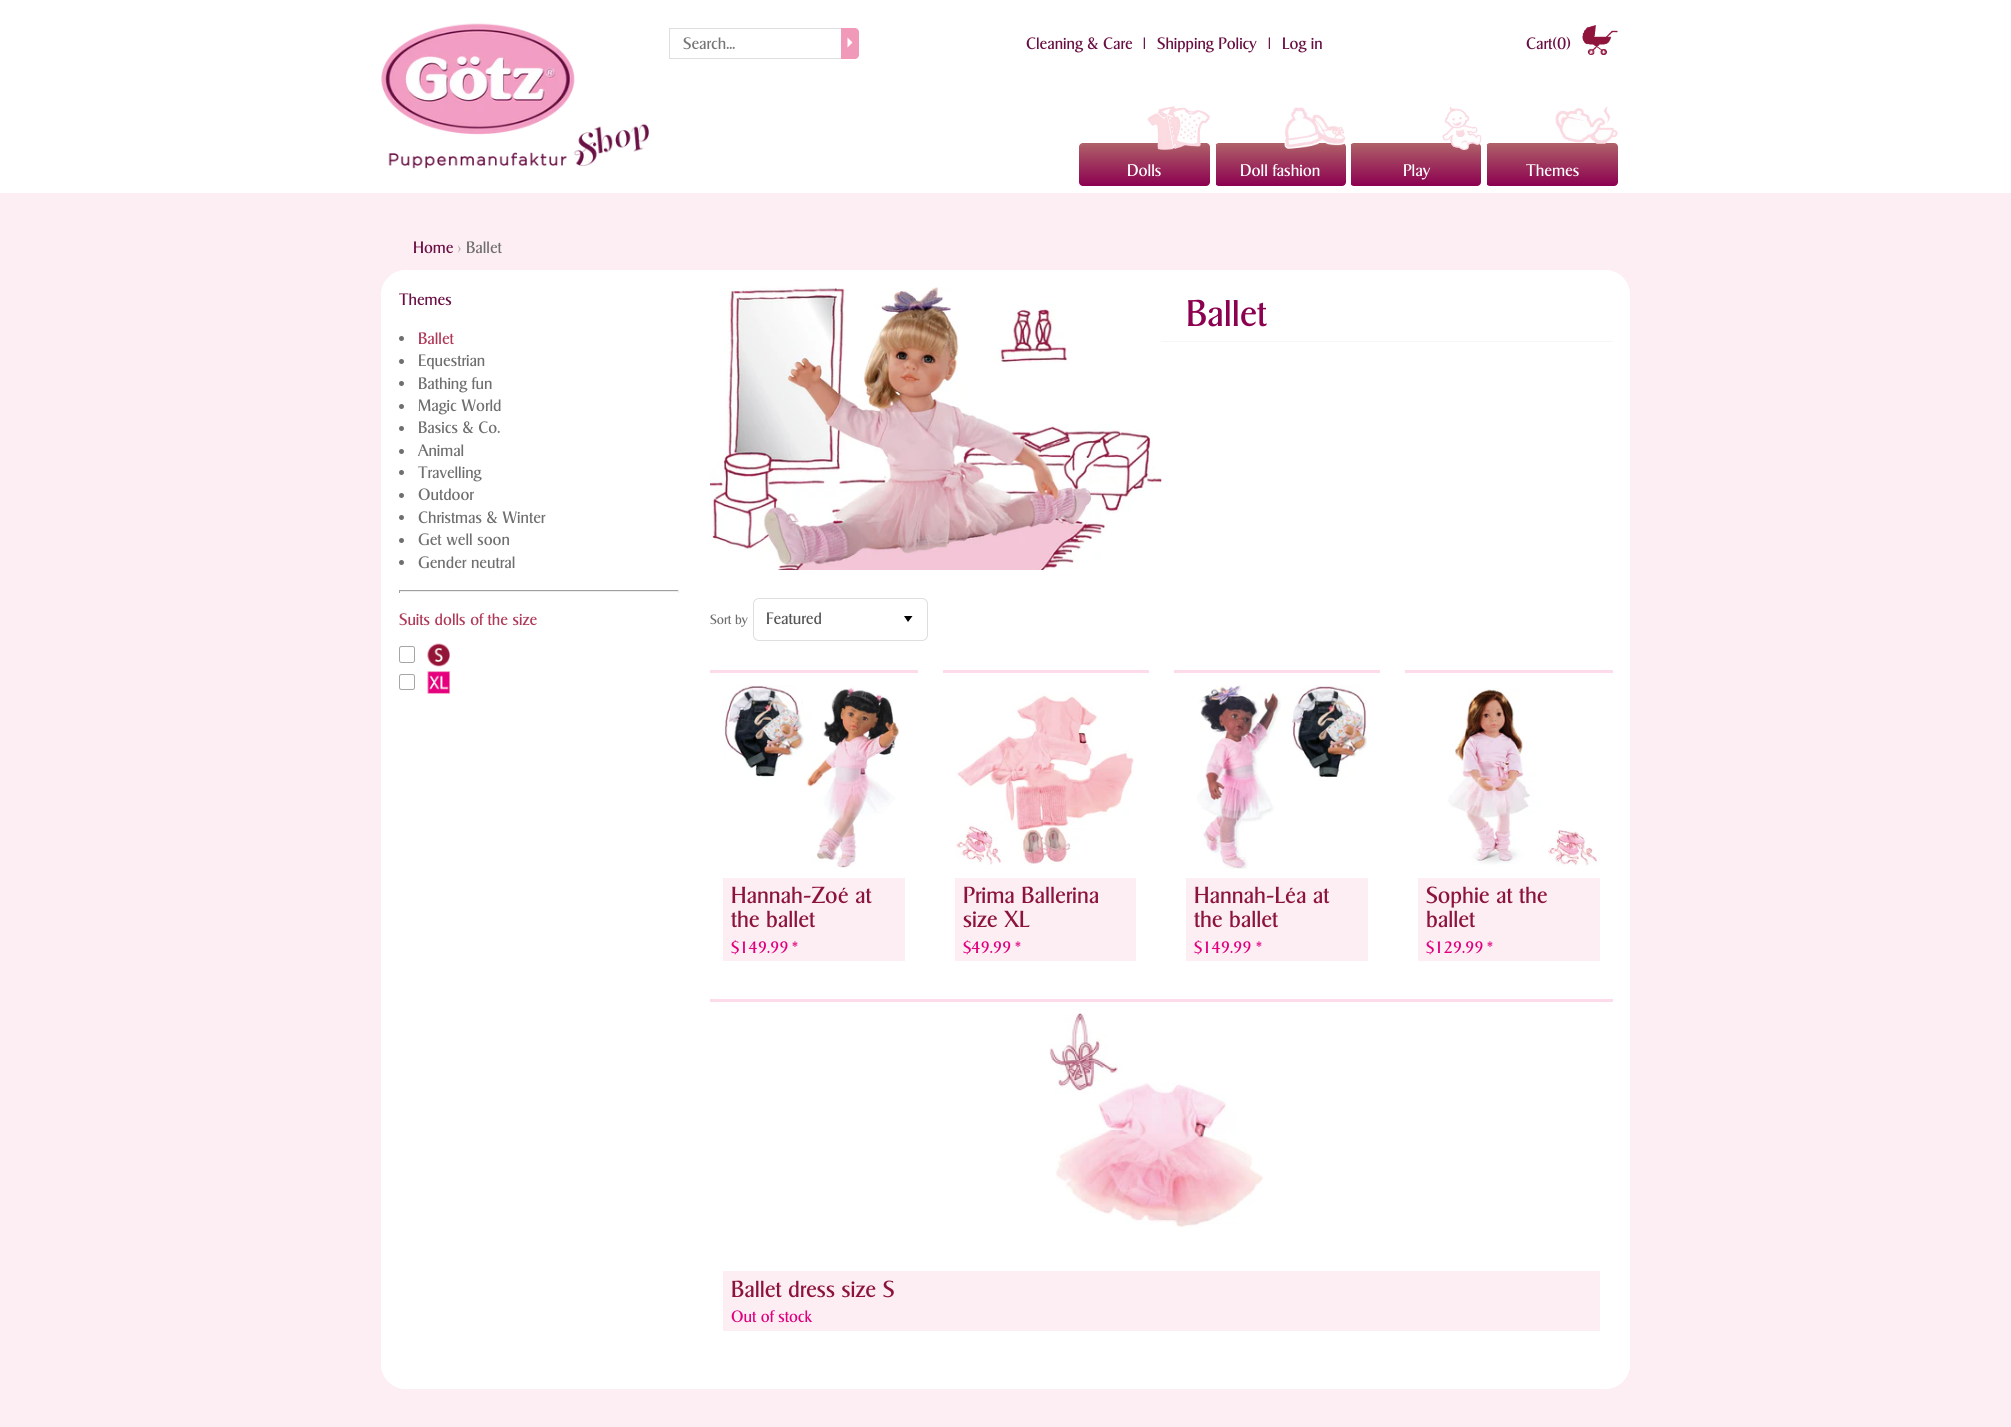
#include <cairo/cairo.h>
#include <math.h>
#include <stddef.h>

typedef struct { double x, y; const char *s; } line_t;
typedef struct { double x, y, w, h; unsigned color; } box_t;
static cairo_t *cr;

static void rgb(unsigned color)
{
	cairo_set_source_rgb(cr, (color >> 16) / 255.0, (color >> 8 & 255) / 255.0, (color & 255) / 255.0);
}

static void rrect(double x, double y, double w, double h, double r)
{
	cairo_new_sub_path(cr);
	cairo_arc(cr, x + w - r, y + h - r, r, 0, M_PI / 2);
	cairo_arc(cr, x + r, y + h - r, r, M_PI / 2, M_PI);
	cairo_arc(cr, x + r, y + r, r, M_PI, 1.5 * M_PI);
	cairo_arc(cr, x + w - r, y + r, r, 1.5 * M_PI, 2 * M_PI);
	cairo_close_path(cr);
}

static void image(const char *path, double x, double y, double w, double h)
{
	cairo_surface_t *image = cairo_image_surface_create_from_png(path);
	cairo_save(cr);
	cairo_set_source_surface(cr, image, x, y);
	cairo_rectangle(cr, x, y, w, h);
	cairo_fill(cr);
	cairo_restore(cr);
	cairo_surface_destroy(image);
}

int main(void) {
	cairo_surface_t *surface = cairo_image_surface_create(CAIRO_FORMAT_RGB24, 2011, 1427);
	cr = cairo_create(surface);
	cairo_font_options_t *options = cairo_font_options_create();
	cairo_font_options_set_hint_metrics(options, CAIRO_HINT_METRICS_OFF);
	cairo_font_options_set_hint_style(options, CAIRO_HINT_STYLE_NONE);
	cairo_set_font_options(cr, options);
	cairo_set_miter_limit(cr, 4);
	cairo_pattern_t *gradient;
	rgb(0xfdeef4);
	cairo_paint(cr);
	rgb(0xffffff);
	cairo_rectangle(cr, 0, 0, 2011, 193);
	cairo_fill(cr);
	image("img/1.png", 381, 23, 268, 146);
	cairo_rectangle(cr, 669.5, 28.5, 173, 30);
	rgb(0xdddedf);
	cairo_set_line_width(cr, 1);
	cairo_stroke(cr);
	rgb(0xf099b8);
	cairo_new_path(cr);
	cairo_move_to(cr, 841, 28);
	cairo_line_to(cr, 855, 28);
	cairo_curve_to(cr, 857, 28, 859, 30, 859, 32);
	cairo_line_to(cr, 859, 55);
	cairo_curve_to(cr, 859, 57, 857, 59, 855, 59);
	cairo_line_to(cr, 841, 59);
	cairo_close_path(cr);
	cairo_fill(cr);
	image("img/2.png", 847, 37, 6, 11);
	image("img/3.png", 1582, 25, 36, 30);
	gradient = cairo_pattern_create_linear(1144, 143, 1144, 186);
	cairo_pattern_add_color_stop_rgba(gradient, 0, 0.686, 0.384, 0.412, 1);
	cairo_pattern_add_color_stop_rgba(gradient, 1, 0.549, 0, 0.314, 1);
	cairo_set_source(cr, gradient);
	cairo_pattern_destroy(gradient);
	rrect(1079, 143, 131, 43, 4);
	cairo_fill(cr);
	image("img/4.png", 1147, 106, 63, 44);
	gradient = cairo_pattern_create_linear(1281, 143, 1281, 186);
	cairo_pattern_add_color_stop_rgba(gradient, 0, 0.686, 0.384, 0.412, 1);
	cairo_pattern_add_color_stop_rgba(gradient, 1, 0.549, 0, 0.314, 1);
	cairo_set_source(cr, gradient);
	cairo_pattern_destroy(gradient);
	rrect(1215, 143, 131, 43, 4);
	cairo_fill(cr);
	rgb(0xffffff);
	cairo_rectangle(cr, 1215, 145, 1, 40);
	cairo_fill(cr);
	image("img/5.png", 1284, 107, 62, 42);
	gradient = cairo_pattern_create_linear(1416, 143, 1416, 186);
	cairo_pattern_add_color_stop_rgba(gradient, 0, 0.686, 0.384, 0.412, 1);
	cairo_pattern_add_color_stop_rgba(gradient, 1, 0.549, 0, 0.314, 1);
	cairo_set_source(cr, gradient);
	cairo_pattern_destroy(gradient);
	rrect(1350, 143, 131, 43, 4);
	cairo_fill(cr);
	rgb(0xffffff);
	cairo_rectangle(cr, 1350, 145, 1, 40);
	cairo_fill(cr);
	image("img/6.png", 1442, 106, 40, 44);
	gradient = cairo_pattern_create_linear(1553, 143, 1553, 186);
	cairo_pattern_add_color_stop_rgba(gradient, 0, 0.686, 0.384, 0.412, 1);
	cairo_pattern_add_color_stop_rgba(gradient, 1, 0.549, 0, 0.314, 1);
	cairo_set_source(cr, gradient);
	cairo_pattern_destroy(gradient);
	rrect(1486, 143, 132, 43, 4);
	cairo_fill(cr);
	rgb(0xffffff);
	cairo_rectangle(cr, 1486, 145, 1, 40);
	cairo_fill(cr);
	image("img/7.png", 1555, 106, 63, 38);
	rrect(381, 270, 1249, 1119, 25);
	cairo_fill(cr);
	rrect(381.5, 270.5, 1248, 1118, 24.5);
	cairo_set_source_rgba(cr, 1, 1, 1, 0.7);
	cairo_stroke(cr);
	rgb(0x6f6f6f);
	cairo_arc(cr, 401.5, 338.5, 2.5, 0, 2 * M_PI);
	cairo_fill(cr);
	cairo_arc(cr, 401.5, 361.5, 2.5, 0, 2 * M_PI);
	cairo_fill(cr);
	cairo_arc(cr, 401.5, 383.5, 2.5, 0, 2 * M_PI);
	cairo_fill(cr);
	cairo_arc(cr, 401.5, 406.5, 2.5, 0, 2 * M_PI);
	cairo_fill(cr);
	cairo_arc(cr, 401.5, 428.5, 2.5, 0, 2 * M_PI);
	cairo_fill(cr);
	cairo_arc(cr, 401.5, 451.5, 2.5, 0, 2 * M_PI);
	cairo_fill(cr);
	cairo_arc(cr, 401.5, 472.5, 2.5, 0, 2 * M_PI);
	cairo_fill(cr);
	cairo_arc(cr, 401.5, 495.5, 2.5, 0, 2 * M_PI);
	cairo_fill(cr);
	cairo_arc(cr, 401.5, 517.5, 2.5, 0, 2 * M_PI);
	cairo_fill(cr);
	cairo_arc(cr, 401.5, 540.5, 2.5, 0, 2 * M_PI);
	cairo_fill(cr);
	cairo_arc(cr, 401.5, 562.5, 2.5, 0, 2 * M_PI);
	cairo_fill(cr);
	{
		static const box_t items[] = {
			{399, 590, 280, 1, 0x9f9f9f},
			{678, 590, 1, 3, 0xeeeeee},
			{399, 591, 280, 1, 0xeeeeee},
			{399, 590, 1, 3, 0x9f9f9f},
		};
		for (size_t i = 0; i < sizeof items / sizeof *items; i++) {
			rgb(items[i].color);
			cairo_rectangle(cr, items[i].x, items[i].y, items[i].w, items[i].h);
			cairo_fill(cr);
		}
	}
	rrect(399.5, 646.5, 15, 16, 2);
	rgb(0xa6a6a6);
	cairo_stroke(cr);
	image("img/8.png", 427, 643, 23, 24);
	rrect(399.5, 674.5, 15, 15, 2);
	cairo_stroke(cr);
	image("img/9.png", 427, 671, 23, 23);
	rgb(0xf6f6f6);
	cairo_rectangle(cr, 1161, 341, 452, 1);
	cairo_fill(cr);
	image("img/10.png", 710, 287, 452, 283);
	rgb(0x000000);
	cairo_new_path(cr);
	cairo_move_to(cr, 904, 616);
	cairo_line_to(cr, 908, 622);
	cairo_line_to(cr, 912.5, 616);
	cairo_close_path(cr);
	cairo_fill(cr);
	rrect(753.5, 598.5, 174, 42, 5.5);
	rgb(0xdddedf);
	cairo_stroke(cr);
	rgb(0xfddbeb);
	cairo_rectangle(cr, 710, 670, 208, 3);
	cairo_fill(cr);
	image("img/11.png", 722, 685, 178, 184);
	rgb(0xfdeef4);
	cairo_rectangle(cr, 723, 878, 182, 83);
	cairo_fill(cr);
	rgb(0xfddbeb);
	cairo_rectangle(cr, 943, 670, 206, 3);
	cairo_fill(cr);
	image("img/12.png", 955, 692, 179, 173);
	rgb(0xfdeef4);
	cairo_rectangle(cr, 955, 878, 181, 83);
	cairo_fill(cr);
	rgb(0xfddbeb);
	cairo_rectangle(cr, 1174, 670, 206, 3);
	cairo_fill(cr);
	image("img/13.png", 1197, 685, 170, 184);
	rgb(0xfdeef4);
	cairo_rectangle(cr, 1186, 878, 182, 83);
	cairo_fill(cr);
	rgb(0xfddbeb);
	cairo_rectangle(cr, 1405, 670, 208, 3);
	cairo_fill(cr);
	image("img/14.png", 1447, 688, 153, 178);
	rgb(0xfdeef4);
	cairo_rectangle(cr, 1418, 878, 182, 83);
	cairo_fill(cr);
	rgb(0xfddbeb);
	cairo_rectangle(cr, 710, 999, 903, 3);
	cairo_fill(cr);
	image("img/15.png", 1049, 1013, 214, 215);
	rgb(0xfdeef4);
	cairo_rectangle(cr, 723, 1271, 877, 60);
	cairo_fill(cr);
	cairo_select_font_face(cr, "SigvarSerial", CAIRO_FONT_SLANT_NORMAL, CAIRO_FONT_WEIGHT_NORMAL);
	cairo_set_font_size(cr, 16);
	rgb(0x757575);
	cairo_move_to(cr, 683, 49);
	cairo_show_text(cr, "Search...");
	rgb(0x690f43);
	{
		static const line_t items[] = {
			{1026, 49, "Cleaning & Care"},
			{1143, 49, "|"},
			{1157, 49, "Shipping Policy"},
			{1268, 49, "|"},
			{1282, 49, "Log in"},
			{1526, 49, "Cart(0)"},
		};
		for (size_t i = 0; i < sizeof items / sizeof *items; i++) {
			cairo_move_to(cr, items[i].x, items[i].y);
			cairo_show_text(cr, items[i].s);
		}
	}
	cairo_set_font_size(cr, 16.25);
	rgb(0xffffff);
	{
		static const line_t items[] = {
			{1127, 176, "Dolls"},
			{1240, 176, "Doll fashion"},
			{1403, 176, "Play"},
			{1526, 176, "Themes"},
		};
		for (size_t i = 0; i < sizeof items / sizeof *items; i++) {
			cairo_move_to(cr, items[i].x, items[i].y);
			cairo_show_text(cr, items[i].s);
		}
	}
	cairo_set_font_size(cr, 16);
	rgb(0x690f43);
	cairo_move_to(cr, 413, 253);
	cairo_show_text(cr, "Home");
	rgb(0xb6afb2);
	cairo_move_to(cr, 457, 253);
	cairo_show_text(cr, "›");
	rgb(0x6f6f6f);
	cairo_move_to(cr, 466, 253);
	cairo_show_text(cr, "Ballet");
	rgb(0x690f43);
	cairo_move_to(cr, 399, 305);
	cairo_show_text(cr, "Themes");
	rgb(0xb03857);
	cairo_move_to(cr, 418, 344);
	cairo_show_text(cr, "Ballet");
	rgb(0x6f6f6f);
	{
		static const line_t items[] = {
			{418, 366, "Equestrian"},
			{418, 389, "Bathing fun"},
			{418, 411, "Magic World"},
			{418, 433, "Basics & Co."},
			{418, 456, "Animal"},
			{418, 478, "Travelling"},
			{418, 500, "Outdoor"},
			{418, 523, "Christmas & Winter"},
			{418, 545, "Get well soon"},
			{418, 568, "Gender neutral"},
		};
		for (size_t i = 0; i < sizeof items / sizeof *items; i++) {
			cairo_move_to(cr, items[i].x, items[i].y);
			cairo_show_text(cr, items[i].s);
		}
	}
	rgb(0xb03857);
	cairo_move_to(cr, 399, 625);
	cairo_show_text(cr, "Suits dolls of the size");
	cairo_set_font_size(cr, 36);
	rgb(0x8c0050);
	cairo_move_to(cr, 1186, 326);
	cairo_show_text(cr, "Ballet");
	cairo_set_font_size(cr, 13);
	rgb(0x6f6f6f);
	cairo_move_to(cr, 710, 624);
	cairo_show_text(cr, "Sort by");
	cairo_set_font_size(cr, 16);
	rgb(0x555555);
	cairo_move_to(cr, 766, 624);
	cairo_show_text(cr, "Featured");
	cairo_set_font_size(cr, 22.5);
	rgb(0x8c143c);
	cairo_move_to(cr, 731, 903);
	cairo_show_text(cr, "Hannah-Zoé at");
	cairo_move_to(cr, 731, 927);
	cairo_show_text(cr, "the ballet");
	cairo_set_font_size(cr, 16);
	rgb(0xe0007e);
	cairo_move_to(cr, 731, 953);
	cairo_show_text(cr, "$149.99");
	cairo_move_to(cr, 792, 953);
	cairo_show_text(cr, "*");
	cairo_set_font_size(cr, 22.5);
	rgb(0x8c143c);
	cairo_move_to(cr, 963, 903);
	cairo_show_text(cr, "Prima Ballerina");
	cairo_move_to(cr, 963, 927);
	cairo_show_text(cr, "size XL");
	cairo_set_font_size(cr, 16);
	rgb(0xe0007e);
	cairo_move_to(cr, 963, 953);
	cairo_show_text(cr, "$49.99");
	cairo_move_to(cr, 1015, 953);
	cairo_show_text(cr, "*");
	cairo_set_font_size(cr, 22.5);
	rgb(0x8c143c);
	cairo_move_to(cr, 1194, 903);
	cairo_show_text(cr, "Hannah-Léa at");
	cairo_move_to(cr, 1194, 927);
	cairo_show_text(cr, "the ballet");
	cairo_set_font_size(cr, 16);
	rgb(0xe0007e);
	cairo_move_to(cr, 1194, 953);
	cairo_show_text(cr, "$149.99");
	cairo_move_to(cr, 1256, 953);
	cairo_show_text(cr, "*");
	cairo_set_font_size(cr, 22.5);
	rgb(0x8c143c);
	cairo_move_to(cr, 1426, 903);
	cairo_show_text(cr, "Sophie at the");
	cairo_move_to(cr, 1426, 927);
	cairo_show_text(cr, "ballet");
	cairo_set_font_size(cr, 16);
	rgb(0xe0007e);
	cairo_move_to(cr, 1426, 953);
	cairo_show_text(cr, "$129.99");
	cairo_move_to(cr, 1487, 953);
	cairo_show_text(cr, "*");
	cairo_set_font_size(cr, 22.5);
	rgb(0x8c143c);
	cairo_move_to(cr, 731, 1297);
	cairo_show_text(cr, "Ballet dress size S");
	cairo_set_font_size(cr, 16);
	rgb(0xe0007e);
	cairo_move_to(cr, 731, 1322);
	cairo_show_text(cr, "Out of stock");
	cairo_surface_write_to_png(surface, "page.png");
	cairo_font_options_destroy(options);
	cairo_destroy(cr);
	cairo_surface_destroy(surface);
	return 0;
}
